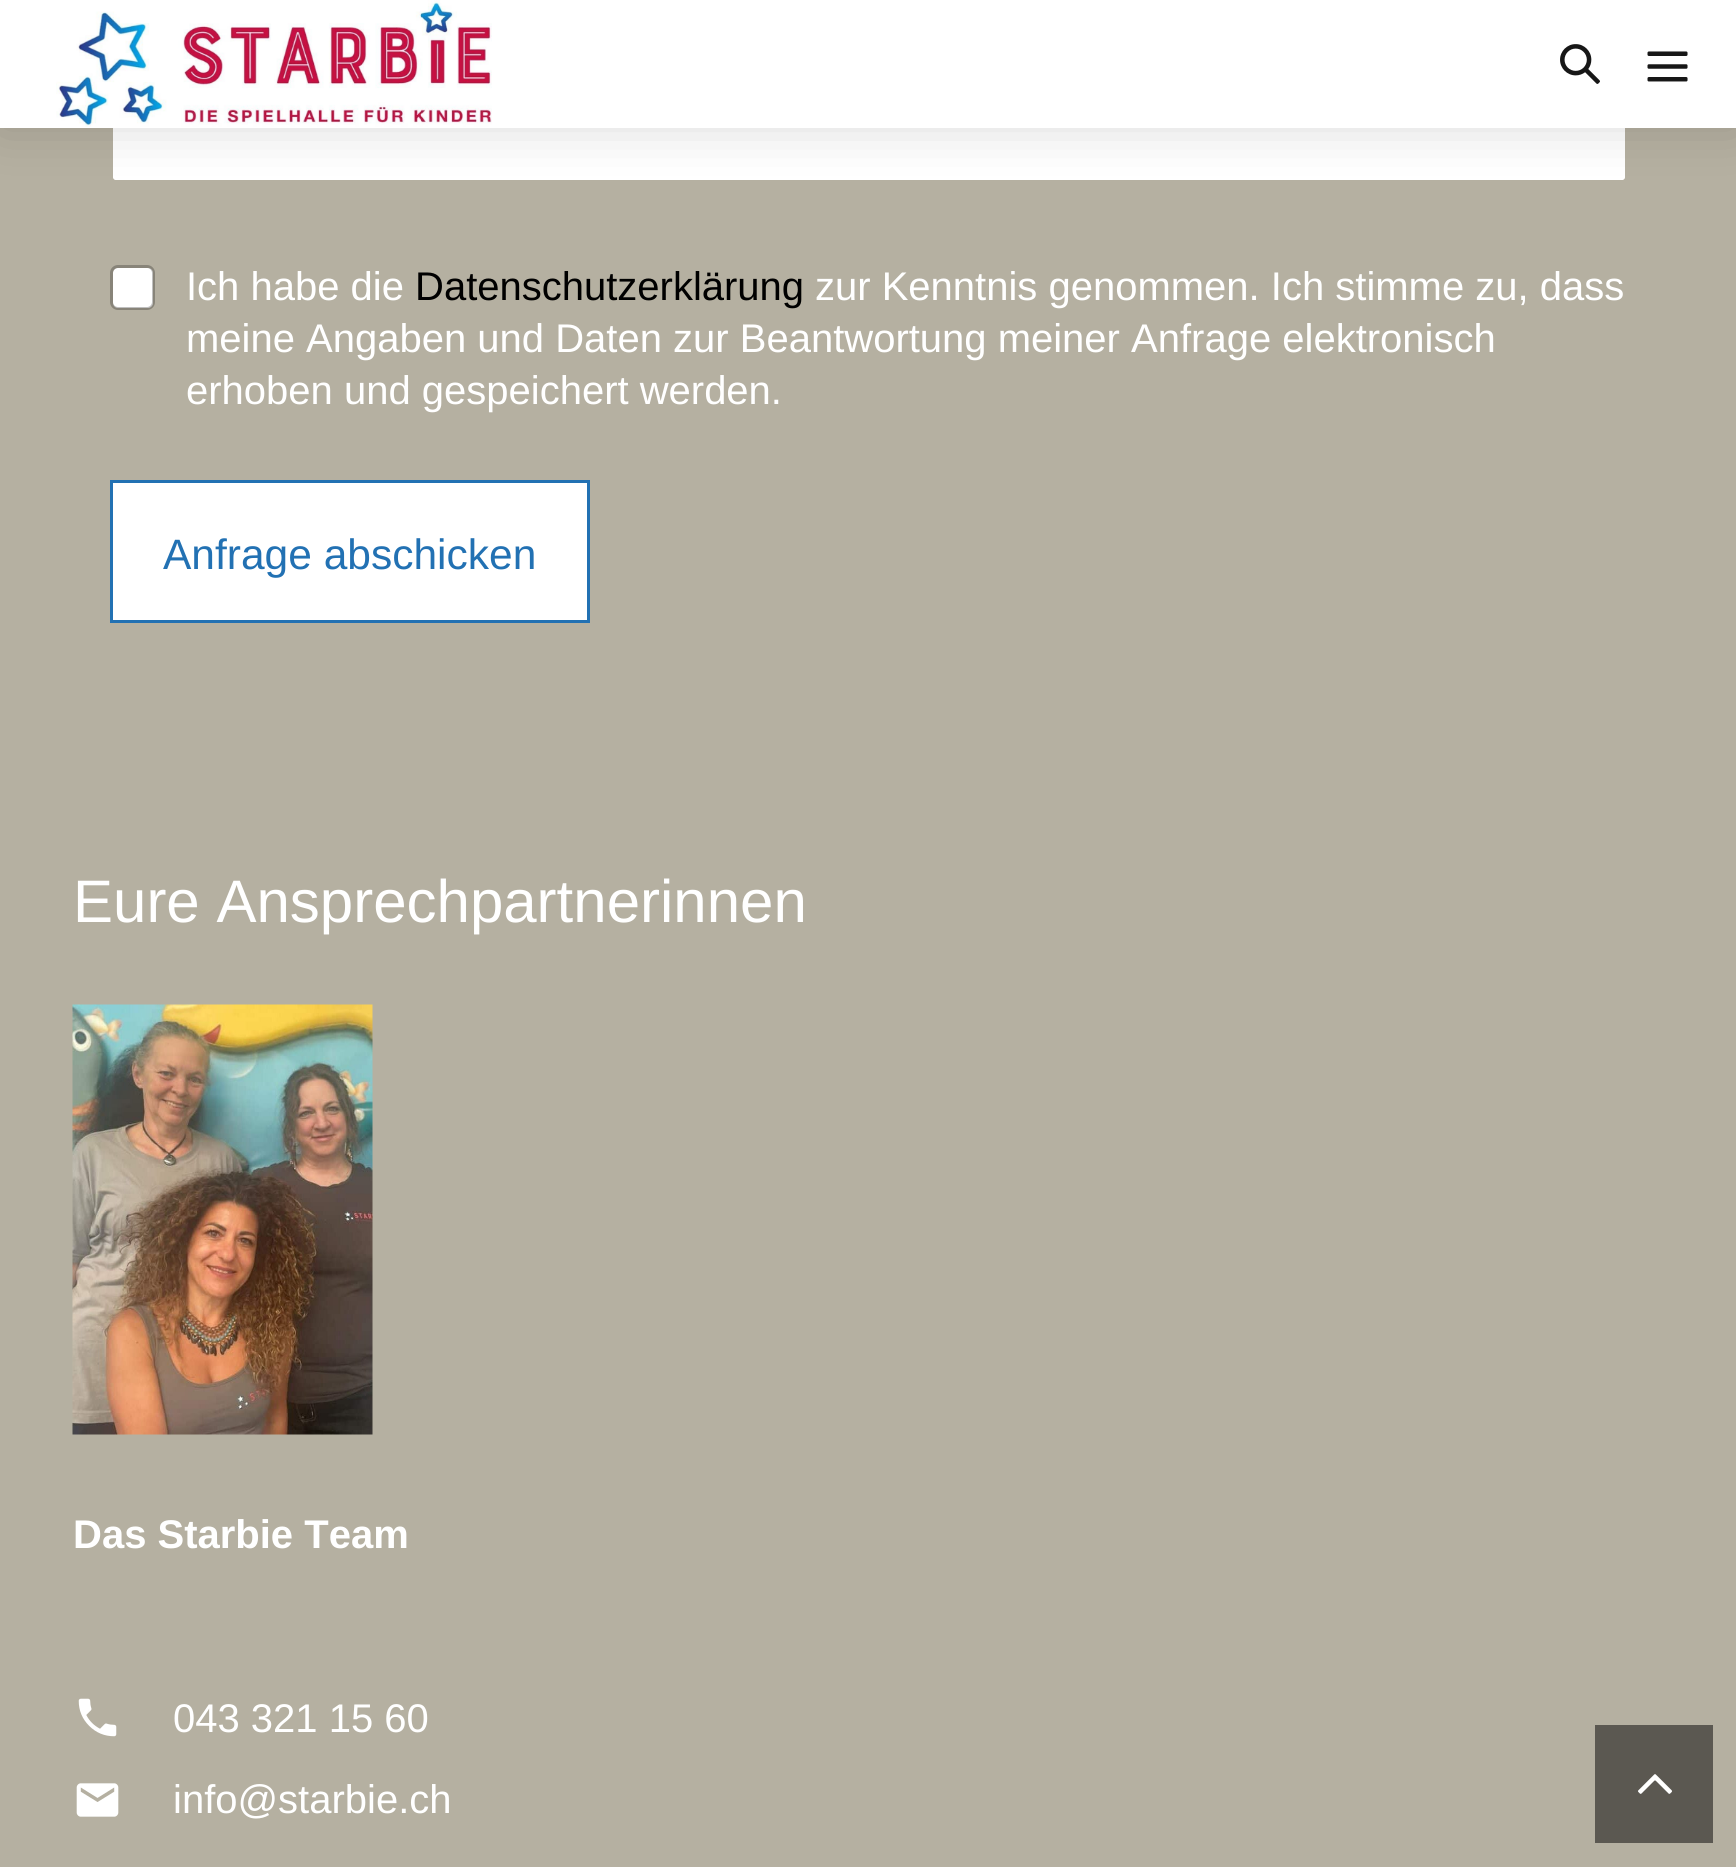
#include <cairo/cairo.h>
#include <math.h>
#include <stddef.h>

typedef struct { double x, y; const char *s; } line_t;
static cairo_t *cr;

static void rgb(unsigned color)
{
	cairo_set_source_rgb(cr, (color >> 16) / 255.0, (color >> 8 & 255) / 255.0, (color & 255) / 255.0);
}

static void rrect(double x, double y, double w, double h, double r)
{
	cairo_new_sub_path(cr);
	cairo_arc(cr, x + w - r, y + h - r, r, 0, M_PI / 2);
	cairo_arc(cr, x + r, y + h - r, r, M_PI / 2, M_PI);
	cairo_arc(cr, x + r, y + r, r, M_PI, 1.5 * M_PI);
	cairo_arc(cr, x + w - r, y + r, r, 1.5 * M_PI, 2 * M_PI);
	cairo_close_path(cr);
}

static void soft_shadow(double x, double y, double w, double h, double r, double blur, double alpha)
{
	cairo_push_group_with_content(cr, CAIRO_CONTENT_ALPHA);
	cairo_set_operator(cr, CAIRO_OPERATOR_SOURCE);
	for (int i = 15; i >= -15 && fmin(w, h) + blur * i / 3 > 0; i -= 2) {
		double e = blur * i / 6;
		cairo_set_source_rgba(cr, 0, 0, 0, alpha * erfc((i - 1) / 8.5) / 2);
		rrect(x - e, y - e, w + 2 * e, h + 2 * e, fmax(0, fmin(r + e + blur * .6, fmin(w, h) / 2 + e)));
		cairo_fill(cr);
	}
	cairo_pattern_t *soft = cairo_pop_group(cr);
	cairo_mask(cr, soft);
	cairo_pattern_destroy(soft);
}

static void image(const char *path, double x, double y, double w, double h)
{
	cairo_surface_t *image = cairo_image_surface_create_from_png(path);
	cairo_save(cr);
	cairo_set_source_surface(cr, image, x, y);
	cairo_rectangle(cr, x, y, w, h);
	cairo_fill(cr);
	cairo_restore(cr);
	cairo_surface_destroy(image);
}

int main(void) {
	cairo_surface_t *surface = cairo_image_surface_create(CAIRO_FORMAT_RGB24, 1736, 1867);
	cr = cairo_create(surface);
	cairo_font_options_t *options = cairo_font_options_create();
	cairo_font_options_set_hint_metrics(options, CAIRO_HINT_METRICS_OFF);
	cairo_font_options_set_hint_style(options, CAIRO_HINT_STYLE_NONE);
	cairo_set_font_options(cr, options);
	cairo_set_miter_limit(cr, 4);
	rgb(0xb5b0a1);
	cairo_paint(cr);
	rgb(0xffffff);
	rrect(113, -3, 1512, 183, 2.5);
	cairo_fill(cr);
	rrect(111.5, -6.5, 1515, 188, 3.5);
	rgb(0xb5b0a1);
	cairo_set_line_width(cr, 3);
	cairo_stroke(cr);
	cairo_save(cr);
	cairo_set_fill_rule(cr, CAIRO_FILL_RULE_EVEN_ODD);
	cairo_new_path(cr);
	cairo_move_to(cr, 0, 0);
	cairo_line_to(cr, 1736, 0);
	cairo_line_to(cr, 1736, 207);
	cairo_line_to(cr, 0, 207);
	cairo_close_path(cr);
	cairo_move_to(cr, 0, 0);
	cairo_line_to(cr, 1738, 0);
	cairo_line_to(cr, 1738, 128);
	cairo_line_to(cr, 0, 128);
	cairo_close_path(cr);
	cairo_clip(cr);
	rgb(0x000000);
	soft_shadow(0, 0, 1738, 128, 0, 26, 0.15);
	cairo_restore(cr);
	cairo_set_source_rgba(cr, 1, 1, 1, 0.95);
	cairo_rectangle(cr, 0, 0, 1736, 128);
	cairo_fill(cr);
	cairo_rectangle(cr, 0, 0, 1736, 128);
	cairo_fill(cr);
	image("img/1.png", 56, 0, 436, 127);
	image("img/2.png", 1560, 44, 40, 40);
	image("img/3.png", 1647, 51, 41, 31);
	rgb(0xffffff);
	rrect(113, 268, 40, 40, 5);
	cairo_fill(cr);
	rrect(111.5, 266.5, 42, 42, 6.5);
	cairo_set_source_rgba(cr, 0, 0, 0, 0.25);
	cairo_stroke(cr);
	rgb(0xffffff);
	cairo_rectangle(cr, 111.5, 481.5, 477, 140);
	cairo_fill_preserve(cr);
	rgb(0x2271b3);
	cairo_stroke(cr);
	image("img/4.png", 72, 1004, 301, 431);
	image("img/5.png", 78, 1698, 39, 39);
	image("img/6.png", 76, 1783, 43, 34);
	rgb(0x5b5851);
	cairo_rectangle(cr, 1595, 1725, 118, 118);
	cairo_fill(cr);
	image("img/7.png", 1638, 1774, 34, 20);
	cairo_select_font_face(cr, "Liberation Sans", CAIRO_FONT_SLANT_NORMAL, CAIRO_FONT_WEIGHT_NORMAL);
	cairo_set_font_size(cr, 40);
	rgb(0xffffff);
	cairo_move_to(cr, 186, 300);
	cairo_show_text(cr, "Ich habe die");
	rgb(0x000000);
	cairo_move_to(cr, 415, 300);
	cairo_show_text(cr, "Datenschutzerklärung");
	rgb(0xffffff);
	{
		static const line_t items[] = {
			{815, 300, "zur Kenntnis genommen. Ich stimme zu, dass"},
			{186, 352, "meine Angaben und Daten zur Beantwortung meiner Anfrage elektronisch"},
			{186, 404, "erhoben und gespeichert werden."},
		};
		for (size_t i = 0; i < sizeof items / sizeof *items; i++) {
			cairo_move_to(cr, items[i].x, items[i].y);
			cairo_show_text(cr, items[i].s);
		}
	}
	cairo_set_font_size(cr, 42.5);
	rgb(0x2271b3);
	cairo_move_to(cr, 163, 569);
	cairo_show_text(cr, "Anfrage abschicken");
	cairo_set_font_size(cr, 60);
	rgb(0xffffff);
	cairo_move_to(cr, 73, 922);
	cairo_show_text(cr, "Eure Ansprechpartnerinnen");
	cairo_select_font_face(cr, "Liberation Sans", CAIRO_FONT_SLANT_NORMAL, CAIRO_FONT_WEIGHT_BOLD);
	cairo_set_font_size(cr, 40);
	cairo_move_to(cr, 73, 1548);
	cairo_show_text(cr, "Das Starbie Team");
	cairo_select_font_face(cr, "Liberation Sans", CAIRO_FONT_SLANT_NORMAL, CAIRO_FONT_WEIGHT_NORMAL);
	cairo_move_to(cr, 173, 1732);
	cairo_show_text(cr, "043 321 15 60");
	cairo_move_to(cr, 173, 1813);
	cairo_show_text(cr, "info@starbie.ch");
	cairo_surface_write_to_png(surface, "page.png");
	cairo_font_options_destroy(options);
	cairo_destroy(cr);
	cairo_surface_destroy(surface);
	return 0;
}
